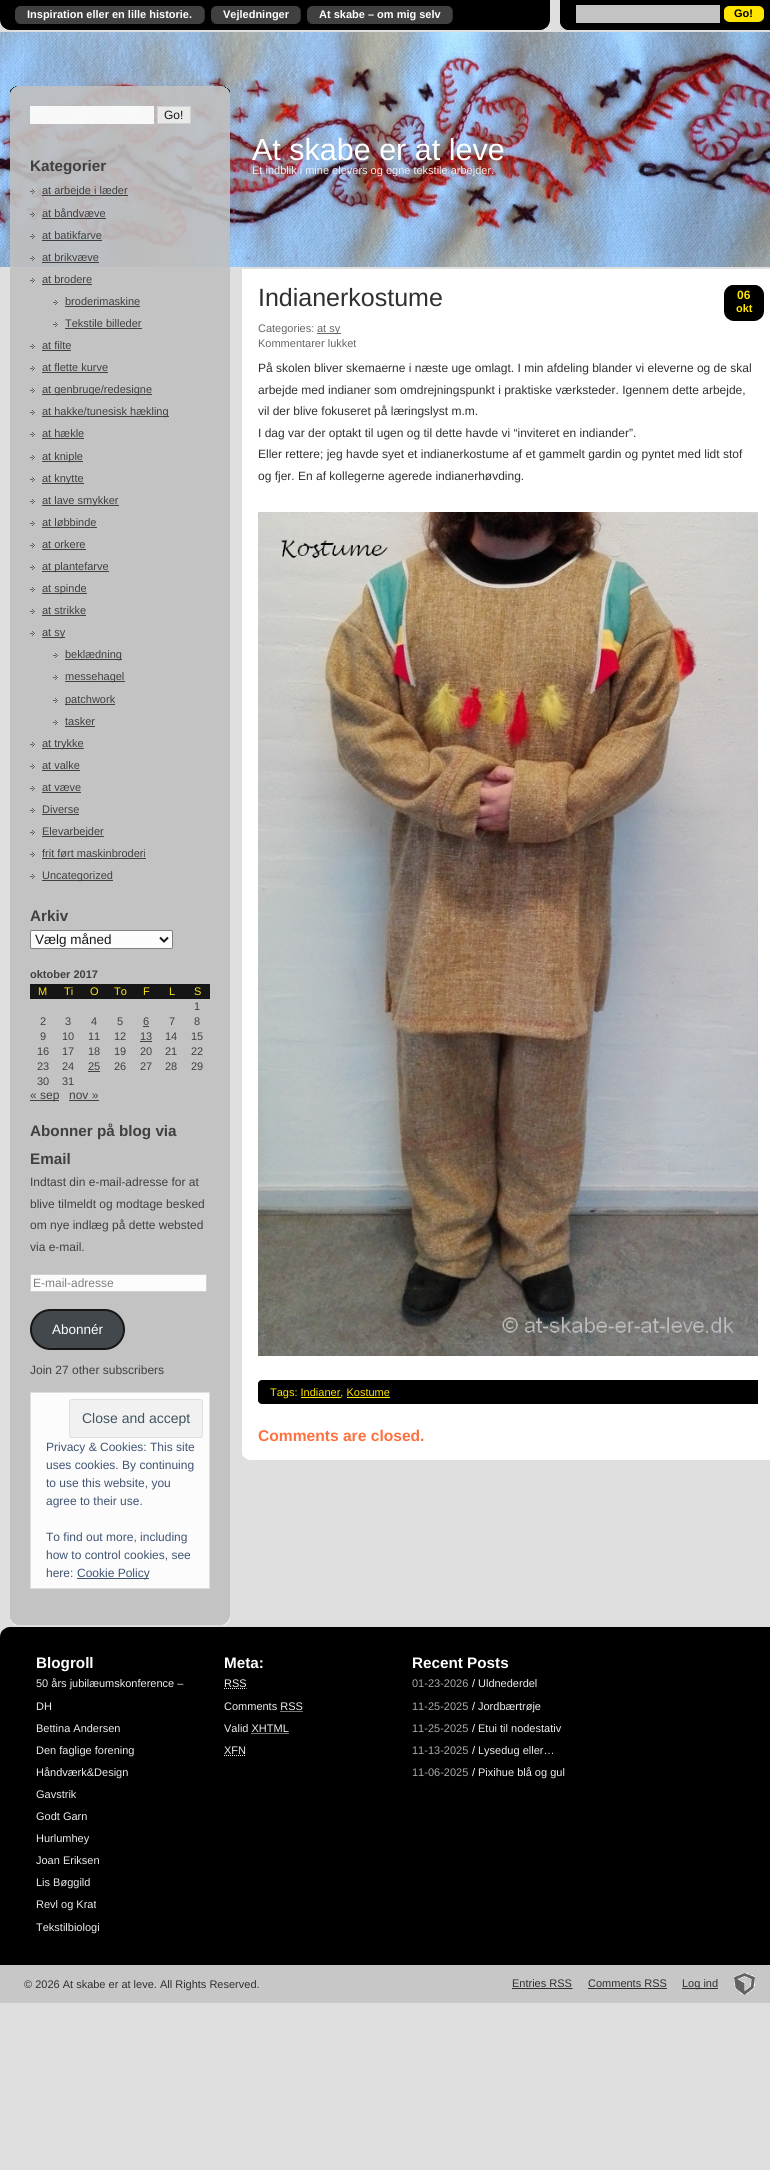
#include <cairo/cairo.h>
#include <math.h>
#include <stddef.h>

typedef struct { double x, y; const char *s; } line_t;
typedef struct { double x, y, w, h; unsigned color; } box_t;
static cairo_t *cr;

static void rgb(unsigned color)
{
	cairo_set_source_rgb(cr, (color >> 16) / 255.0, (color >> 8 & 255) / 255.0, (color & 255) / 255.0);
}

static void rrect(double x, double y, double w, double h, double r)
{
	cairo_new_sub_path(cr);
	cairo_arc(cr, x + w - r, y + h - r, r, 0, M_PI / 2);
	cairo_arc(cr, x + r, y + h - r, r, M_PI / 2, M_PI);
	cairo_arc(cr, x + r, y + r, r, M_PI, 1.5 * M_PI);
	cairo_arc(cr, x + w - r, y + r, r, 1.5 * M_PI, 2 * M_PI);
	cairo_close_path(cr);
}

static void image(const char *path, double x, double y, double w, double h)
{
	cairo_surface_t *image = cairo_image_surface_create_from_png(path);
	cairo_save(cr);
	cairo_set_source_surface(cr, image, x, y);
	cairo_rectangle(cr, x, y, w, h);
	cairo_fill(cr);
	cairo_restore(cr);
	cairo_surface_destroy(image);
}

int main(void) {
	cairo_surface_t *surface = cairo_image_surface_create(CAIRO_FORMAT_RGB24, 770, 2170);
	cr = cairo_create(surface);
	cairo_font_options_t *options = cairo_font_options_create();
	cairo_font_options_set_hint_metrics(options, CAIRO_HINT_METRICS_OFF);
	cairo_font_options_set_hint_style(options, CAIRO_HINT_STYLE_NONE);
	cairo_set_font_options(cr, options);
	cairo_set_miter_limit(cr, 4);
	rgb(0xdfdfdf);
	cairo_paint(cr);
	image("img/1.png", 0, 32, 770, 235);
	image("img/2.png", 0, 0, 550, 30);
	image("img/3.png", 15, 6, 185, 18);
	image("img/4.png", 200, 6, 5, 18);
	image("img/5.png", 211, 6, 85, 18);
	image("img/6.png", 296, 6, 5, 18);
	image("img/7.png", 307, 6, 141, 18);
	image("img/4.png", 448, 6, 5, 18);
	image("img/8.png", 560, 0, 210, 30);
	rgb(0xc3c3c3);
	cairo_rectangle(cr, 576, 5, 144, 18);
	cairo_fill(cr);
	image("img/9.png", 724, 6, 40, 16);
	image("img/10.png", 10, 86, 220, 10);
	cairo_set_source_rgba(cr, 0.753, 0.753, 0.753, 0.9);
	cairo_rectangle(cr, 10, 96, 220, 1519);
	cairo_fill(cr);
	cairo_set_source_rgba(cr, 1, 1, 1, 0.9);
	cairo_rectangle(cr, 30, 106, 124, 18);
	cairo_fill(cr);
	cairo_set_source_rgba(cr, 0.937, 0.937, 0.937, 0.9);
	cairo_rectangle(cr, 157.5, 106.5, 33, 17);
	cairo_fill_preserve(cr);
	rgb(0xd1d1d1);
	cairo_set_line_width(cr, 1);
	cairo_stroke(cr);
	image("img/11.png", 30, 189, 5, 5);
	cairo_set_source_rgba(cr, 0.188, 0.188, 0.188, 0.9);
	cairo_rectangle(cr, 42, 195, 86, 1);
	cairo_fill(cr);
	image("img/12.png", 30, 212, 5, 5);
	cairo_rectangle(cr, 42, 218, 64, 1);
	cairo_fill(cr);
	image("img/13.png", 30, 234, 5, 5);
	cairo_rectangle(cr, 42, 240, 60, 1);
	cairo_fill(cr);
	image("img/14.png", 30, 256, 5, 5);
	cairo_rectangle(cr, 42, 262, 57, 1);
	cairo_fill(cr);
	image("img/15.png", 30, 278, 5, 5);
	rgb(0x424242);
	cairo_rectangle(cr, 42, 284, 50, 1);
	cairo_fill(cr);
	image("img/16.png", 53, 300, 5, 5);
	cairo_rectangle(cr, 65, 306, 75, 1);
	cairo_fill(cr);
	image("img/15.png", 53, 322, 5, 5);
	cairo_rectangle(cr, 65, 328, 77, 1);
	cairo_fill(cr);
	image("img/16.png", 30, 344, 5, 5);
	cairo_rectangle(cr, 42, 350, 29, 1);
	cairo_fill(cr);
	image("img/15.png", 30, 366, 5, 5);
	cairo_rectangle(cr, 42, 372, 66, 1);
	cairo_fill(cr);
	image("img/16.png", 30, 388, 5, 5);
	cairo_rectangle(cr, 42, 394, 110, 1);
	cairo_fill(cr);
	image("img/15.png", 30, 410, 5, 5);
	cairo_rectangle(cr, 42, 416, 127, 1);
	cairo_fill(cr);
	image("img/15.png", 30, 432, 5, 5);
	cairo_rectangle(cr, 42, 438, 42, 1);
	cairo_fill(cr);
	image("img/16.png", 30, 455, 5, 5);
	cairo_rectangle(cr, 42, 461, 41, 1);
	cairo_fill(cr);
	image("img/15.png", 30, 477, 5, 5);
	cairo_rectangle(cr, 42, 483, 42, 1);
	cairo_fill(cr);
	image("img/16.png", 30, 499, 5, 5);
	cairo_rectangle(cr, 42, 505, 77, 1);
	cairo_fill(cr);
	image("img/15.png", 30, 521, 5, 5);
	cairo_rectangle(cr, 42, 527, 55, 1);
	cairo_fill(cr);
	image("img/15.png", 30, 543, 5, 5);
	cairo_rectangle(cr, 42, 549, 44, 1);
	cairo_fill(cr);
	image("img/16.png", 30, 565, 5, 5);
	cairo_rectangle(cr, 42, 571, 67, 1);
	cairo_fill(cr);
	image("img/15.png", 30, 587, 5, 5);
	cairo_rectangle(cr, 42, 593, 45, 1);
	cairo_fill(cr);
	image("img/15.png", 30, 609, 5, 5);
	cairo_rectangle(cr, 42, 615, 44, 1);
	cairo_fill(cr);
	image("img/16.png", 30, 631, 5, 5);
	cairo_rectangle(cr, 42, 637, 23, 1);
	cairo_fill(cr);
	image("img/15.png", 53, 653, 5, 5);
	cairo_rectangle(cr, 65, 659, 57, 1);
	cairo_fill(cr);
	image("img/15.png", 53, 675, 5, 5);
	cairo_rectangle(cr, 65, 681, 60, 1);
	cairo_fill(cr);
	image("img/15.png", 53, 698, 5, 5);
	cairo_rectangle(cr, 65, 704, 50, 1);
	cairo_fill(cr);
	image("img/15.png", 53, 720, 5, 5);
	cairo_rectangle(cr, 65, 726, 30, 1);
	cairo_fill(cr);
	image("img/15.png", 30, 742, 5, 5);
	cairo_rectangle(cr, 42, 748, 42, 1);
	cairo_fill(cr);
	image("img/16.png", 30, 764, 5, 5);
	cairo_rectangle(cr, 42, 770, 38, 1);
	cairo_fill(cr);
	image("img/15.png", 30, 786, 5, 5);
	cairo_rectangle(cr, 42, 792, 39, 1);
	cairo_fill(cr);
	image("img/15.png", 30, 808, 5, 5);
	cairo_rectangle(cr, 42, 814, 37, 1);
	cairo_fill(cr);
	image("img/16.png", 30, 830, 5, 5);
	cairo_rectangle(cr, 42, 836, 62, 1);
	cairo_fill(cr);
	image("img/15.png", 30, 852, 5, 5);
	cairo_rectangle(cr, 42, 858, 104, 1);
	cairo_fill(cr);
	image("img/16.png", 30, 874, 5, 5);
	cairo_rectangle(cr, 42, 880, 71, 1);
	cairo_fill(cr);
	rgb(0xfcfcfc);
	rrect(30.5, 930.5, 142, 18, 1.5);
	cairo_fill_preserve(cr);
	rgb(0x818181);
	cairo_stroke(cr);
	cairo_new_path(cr);
	cairo_move_to(cr, 160, 937.5);
	cairo_line_to(cr, 164, 941.5);
	cairo_line_to(cr, 168, 937.5);
	rgb(0x161616);
	cairo_set_line_width(cr, 2);
	cairo_stroke(cr);
	{
		static const box_t items[] = {
			{30, 984, 180, 15, 0x161616},
			{143, 1026, 6, 1, 0x424242},
			{140, 1041, 12, 1, 0x424242},
			{88, 1071, 12, 1, 0x424242},
			{30, 1100, 29, 1, 0x424242},
			{69, 1100, 30, 1, 0x424242},
		};
		for (size_t i = 0; i < sizeof items / sizeof *items; i++) {
			rgb(items[i].color);
			cairo_rectangle(cr, items[i].x, items[i].y, items[i].w, items[i].h);
			cairo_fill(cr);
		}
	}
	rgb(0xfcfcfc);
	cairo_rectangle(cr, 30.5, 1274.5, 176, 17);
	cairo_fill_preserve(cr);
	rgb(0xd0d0d0);
	cairo_set_line_width(cr, 1);
	cairo_stroke(cr);
	rgb(0x43484c);
	rrect(31, 1310, 93, 39, 19.5);
	cairo_fill_preserve(cr);
	rgb(0x161616);
	cairo_set_line_width(cr, 2);
	cairo_stroke(cr);
	rgb(0xfcfcfc);
	cairo_rectangle(cr, 30.5, 1392.5, 179, 196);
	cairo_fill_preserve(cr);
	rgb(0xdedede);
	cairo_set_line_width(cr, 1);
	cairo_stroke(cr);
	rgb(0xf1f1f1);
	rrect(69.5, 1399.5, 133, 38, 2.5);
	cairo_fill_preserve(cr);
	rgb(0xdedede);
	cairo_stroke(cr);
	rgb(0x405473);
	cairo_rectangle(cr, 77, 1578, 72, 1);
	cairo_fill(cr);
	image("img/17.png", 10, 1615, 220, 10);
	rgb(0xffffff);
	cairo_rectangle(cr, 242, 269, 528, 1191);
	cairo_fill(cr);
	image("img/18.png", 242, 1454, 8, 6);
	image("img/19.png", 724, 285, 40, 36);
	rgb(0x666666);
	cairo_rectangle(cr, 317, 333, 24, 1);
	cairo_fill(cr);
	image("img/20.png", 258, 512, 500, 844);
	image("img/21.png", 258, 1398, 500, 6);
	image("img/22.png", 258, 1380, 500, 6);
	{
		static const box_t items[] = {
			{258, 1386, 500, 12, 0x000000},
			{301, 1397, 40, 1, 0xffe400},
			{347, 1397, 43, 1, 0xffe400},
			{0, 1627, 770, 338, 0x000000},
		};
		for (size_t i = 0; i < sizeof items / sizeof *items; i++) {
			rgb(items[i].color);
			cairo_rectangle(cr, items[i].x, items[i].y, items[i].w, items[i].h);
			cairo_fill(cr);
		}
	}
	image("img/23.png", 0, 1627, 9, 10);
	cairo_new_path(cr);
	cairo_move_to(cr, 224, 1688.5);
	cairo_line_to(cr, 246.5, 1688.5);
	rgb(0xeeeeee);
	cairo_set_dash(cr, (double[]){1, 1}, 2, 0);
	cairo_stroke(cr);
	cairo_new_path(cr);
	cairo_move_to(cr, 280.5, 1711.5);
	cairo_line_to(cr, 303, 1711.5);
	cairo_stroke(cr);
	cairo_new_path(cr);
	cairo_move_to(cr, 251.5, 1733.5);
	cairo_line_to(cr, 289, 1733.5);
	cairo_stroke(cr);
	cairo_new_path(cr);
	cairo_move_to(cr, 224, 1755.5);
	cairo_line_to(cr, 246, 1755.5);
	cairo_stroke(cr);
	rgb(0xc7c7c7);
	cairo_rectangle(cr, 0, 1965, 770, 38);
	cairo_fill(cr);
	rgb(0x303030);
	cairo_rectangle(cr, 512, 1988, 38, 1);
	cairo_fill(cr);
	cairo_new_path(cr);
	cairo_move_to(cr, 550, 1988.5);
	cairo_line_to(cr, 572.5, 1988.5);
	cairo_stroke(cr);
	{
		static const box_t items[] = {
			{550, 1988, 22, 1, 0x303030},
			{588, 1988, 79, 1, 0x303030},
			{682, 1988, 36, 1, 0x303030},
		};
		for (size_t i = 0; i < sizeof items / sizeof *items; i++) {
			rgb(items[i].color);
			cairo_rectangle(cr, items[i].x, items[i].y, items[i].w, items[i].h);
			cairo_fill(cr);
		}
	}
	image("img/24.png", 734, 1973, 21, 22);
	cairo_select_font_face(cr, "Liberation Sans", CAIRO_FONT_SLANT_NORMAL, CAIRO_FONT_WEIGHT_BOLD);
	cairo_set_font_size(cr, 11);
	rgb(0xffffff);
	{
		static const line_t items[] = {
			{27, 18, "Inspiration eller en lille historie."},
			{223, 18, "Vejledninger"},
			{319, 18, "At skabe – om mig selv"},
		};
		for (size_t i = 0; i < sizeof items / sizeof *items; i++) {
			cairo_move_to(cr, items[i].x, items[i].y);
			cairo_show_text(cr, items[i].s);
		}
	}
	rgb(0x000000);
	cairo_move_to(cr, 734, 17);
	cairo_show_text(cr, "Go!");
	cairo_select_font_face(cr, "Liberation Sans", CAIRO_FONT_SLANT_NORMAL, CAIRO_FONT_WEIGHT_NORMAL);
	cairo_set_font_size(cr, 12);
	rgb(0x171717);
	cairo_move_to(cr, 164, 119);
	cairo_show_text(cr, "Go!");
	cairo_select_font_face(cr, "Liberation Sans", CAIRO_FONT_SLANT_NORMAL, CAIRO_FONT_WEIGHT_BOLD);
	cairo_set_font_size(cr, 15.25);
	rgb(0x404040);
	cairo_move_to(cr, 30, 171);
	cairo_show_text(cr, "Kategorier");
	cairo_select_font_face(cr, "Liberation Sans", CAIRO_FONT_SLANT_NORMAL, CAIRO_FONT_WEIGHT_NORMAL);
	cairo_set_font_size(cr, 11);
	{
		static const line_t items[] = {
			{42, 194, "at arbejde i læder"},
			{42, 217, "at båndvæve"},
			{42, 239, "at batikfarve"},
			{42, 261, "at brikvæve"},
			{42, 283, "at brodere"},
			{65, 305, "broderimaskine"},
			{65, 327, "Tekstile billeder"},
			{42, 349, "at filte"},
			{42, 371, "at flette kurve"},
			{42, 393, "at genbruge/redesigne"},
			{42, 415, "at hakke/tunesisk hækling"},
			{42, 437, "at hækle"},
			{42, 460, "at kniple"},
			{42, 482, "at knytte"},
			{42, 504, "at lave smykker"},
			{42, 526, "at løbbinde"},
			{42, 548, "at orkere"},
			{42, 570, "at plantefarve"},
			{42, 592, "at spinde"},
			{42, 614, "at strikke"},
			{42, 636, "at sy"},
			{65, 658, "beklædning"},
			{65, 680, "messehagel"},
			{65, 703, "patchwork"},
			{65, 725, "tasker"},
			{42, 747, "at trykke"},
			{42, 769, "at valke"},
			{42, 791, "at væve"},
			{42, 813, "Diverse"},
			{42, 835, "Elevarbejder"},
			{42, 857, "frit ført maskinbroderi"},
			{42, 879, "Uncategorized"},
		};
		for (size_t i = 0; i < sizeof items / sizeof *items; i++) {
			cairo_move_to(cr, items[i].x, items[i].y);
			cairo_show_text(cr, items[i].s);
		}
	}
	cairo_select_font_face(cr, "Liberation Sans", CAIRO_FONT_SLANT_NORMAL, CAIRO_FONT_WEIGHT_BOLD);
	cairo_set_font_size(cr, 15.25);
	cairo_move_to(cr, 30, 921);
	cairo_show_text(cr, "Arkiv");
	cairo_select_font_face(cr, "Liberation Sans", CAIRO_FONT_SLANT_NORMAL, CAIRO_FONT_WEIGHT_NORMAL);
	cairo_set_font_size(cr, 13.5);
	rgb(0x171717);
	cairo_move_to(cr, 35, 944);
	cairo_show_text(cr, "Vælg måned");
	cairo_select_font_face(cr, "Liberation Sans", CAIRO_FONT_SLANT_NORMAL, CAIRO_FONT_WEIGHT_BOLD);
	cairo_set_font_size(cr, 11);
	rgb(0x404040);
	cairo_move_to(cr, 30, 978);
	cairo_show_text(cr, "oktober 2017");
	cairo_select_font_face(cr, "Liberation Sans", CAIRO_FONT_SLANT_NORMAL, CAIRO_FONT_WEIGHT_NORMAL);
	rgb(0xfce416);
	{
		static const line_t items[] = {
			{38, 995, "M"},
			{64, 995, "Ti"},
			{90, 995, "O"},
			{114, 995, "To"},
			{143, 995, "F"},
			{169, 995, "L"},
			{194, 995, "S"},
		};
		for (size_t i = 0; i < sizeof items / sizeof *items; i++) {
			cairo_move_to(cr, items[i].x, items[i].y);
			cairo_show_text(cr, items[i].s);
		}
	}
	rgb(0x404040);
	{
		static const line_t items[] = {
			{194, 1010, "1"},
			{40, 1025, "2"},
			{65, 1025, "3"},
			{91, 1025, "4"},
			{117, 1025, "5"},
			{143, 1025, "6"},
			{169, 1025, "7"},
			{194, 1025, "8"},
			{40, 1040, "9"},
			{62, 1040, "10"},
			{88, 1040, "11"},
			{114, 1040, "12"},
			{140, 1040, "13"},
			{165, 1040, "14"},
			{191, 1040, "15"},
			{37, 1055, "16"},
			{62, 1055, "17"},
			{88, 1055, "18"},
			{114, 1055, "19"},
			{140, 1055, "20"},
			{165, 1055, "21"},
			{191, 1055, "22"},
			{37, 1070, "23"},
			{62, 1070, "24"},
			{88, 1070, "25"},
			{114, 1070, "26"},
			{140, 1070, "27"},
			{165, 1070, "28"},
			{191, 1070, "29"},
			{37, 1085, "30"},
			{62, 1085, "31"},
		};
		for (size_t i = 0; i < sizeof items / sizeof *items; i++) {
			cairo_move_to(cr, items[i].x, items[i].y);
			cairo_show_text(cr, items[i].s);
		}
	}
	cairo_set_font_size(cr, 12);
	cairo_move_to(cr, 30, 1099);
	cairo_show_text(cr, "« sep");
	cairo_move_to(cr, 69, 1099);
	cairo_show_text(cr, "nov »");
	cairo_select_font_face(cr, "Liberation Sans", CAIRO_FONT_SLANT_NORMAL, CAIRO_FONT_WEIGHT_BOLD);
	cairo_set_font_size(cr, 15.25);
	cairo_move_to(cr, 30, 1136);
	cairo_show_text(cr, "Abonner på blog via");
	cairo_move_to(cr, 30, 1164);
	cairo_show_text(cr, "Email");
	cairo_select_font_face(cr, "Liberation Sans", CAIRO_FONT_SLANT_NORMAL, CAIRO_FONT_WEIGHT_NORMAL);
	cairo_set_font_size(cr, 12);
	{
		static const line_t items[] = {
			{30, 1186, "Indtast din e-mail-adresse for at"},
			{30, 1208, "blive tilmeldt og modtage besked"},
			{30, 1229, "om nye indlæg på dette websted"},
			{30, 1251, "via e-mail."},
		};
		for (size_t i = 0; i < sizeof items / sizeof *items; i++) {
			cairo_move_to(cr, items[i].x, items[i].y);
			cairo_show_text(cr, items[i].s);
		}
	}
	rgb(0x808080);
	cairo_move_to(cr, 33, 1287);
	cairo_show_text(cr, "E-mail-adresse");
	cairo_set_font_size(cr, 13.5);
	rgb(0xffffff);
	cairo_move_to(cr, 52, 1334);
	cairo_show_text(cr, "Abonnér");
	cairo_set_font_size(cr, 12);
	rgb(0x404040);
	cairo_move_to(cr, 30, 1374);
	cairo_show_text(cr, "Join 27 other subscribers");
	cairo_set_font_size(cr, 14);
	rgb(0x405461);
	cairo_move_to(cr, 82, 1423);
	cairo_show_text(cr, "Close and accept");
	cairo_set_font_size(cr, 12);
	rgb(0x405473);
	{
		static const line_t items[] = {
			{46, 1451, "Privacy & Cookies: This site"},
			{46, 1469, "uses cookies. By continuing"},
			{46, 1487, "to use this website, you"},
			{46, 1505, "agree to their use."},
			{46, 1541, "To find out more, including"},
			{46, 1559, "how to control cookies, see"},
			{46, 1577, "here:"},
			{77, 1577, "Cookie Policy"},
		};
		for (size_t i = 0; i < sizeof items / sizeof *items; i++) {
			cairo_move_to(cr, items[i].x, items[i].y);
			cairo_show_text(cr, items[i].s);
		}
	}
	cairo_set_font_size(cr, 30.5);
	rgb(0xffffff);
	cairo_move_to(cr, 252, 160);
	cairo_show_text(cr, "At skabe er at leve");
	cairo_set_font_size(cr, 11);
	rgb(0xeeeeee);
	cairo_move_to(cr, 252, 174);
	cairo_show_text(cr, "Et indblik i mine elevers og egne tekstile arbejder.");
	cairo_set_font_size(cr, 25);
	rgb(0x303030);
	cairo_move_to(cr, 258, 306);
	cairo_show_text(cr, "Indianerkostume");
	cairo_select_font_face(cr, "Liberation Sans", CAIRO_FONT_SLANT_NORMAL, CAIRO_FONT_WEIGHT_BOLD);
	cairo_set_font_size(cr, 12);
	rgb(0xffe400);
	cairo_move_to(cr, 737, 299);
	cairo_show_text(cr, "06");
	cairo_set_font_size(cr, 11);
	cairo_move_to(cr, 736, 312);
	cairo_show_text(cr, "okt");
	cairo_select_font_face(cr, "Liberation Sans", CAIRO_FONT_SLANT_NORMAL, CAIRO_FONT_WEIGHT_NORMAL);
	rgb(0x666666);
	{
		static const line_t items[] = {
			{258, 332, "Categories:"},
			{317, 332, "at sy"},
			{258, 347, "Kommentarer lukket"},
		};
		for (size_t i = 0; i < sizeof items / sizeof *items; i++) {
			cairo_move_to(cr, items[i].x, items[i].y);
			cairo_show_text(cr, items[i].s);
		}
	}
	cairo_set_font_size(cr, 12);
	rgb(0x303030);
	{
		static const line_t items[] = {
			{258, 372, "På skolen bliver skemaerne i næste uge omlagt. I min afdeling blander vi eleverne og de skal"},
			{258, 394, "arbejde med indianer som omdrejningspunkt i praktiske værksteder. Igennem dette arbejde,"},
			{258, 415, "vil der blive fokuseret på læringslyst m.m."},
			{258, 437, "I dag var der optakt til ugen og til dette havde vi “inviteret en indiander”."},
			{258, 458, "Eller rettere; jeg havde syet et indianerkostume af et gammelt gardin og pyntet med lidt stof"},
			{258, 480, "og fjer. En af kollegerne agerede indianerhøvding."},
		};
		for (size_t i = 0; i < sizeof items / sizeof *items; i++) {
			cairo_move_to(cr, items[i].x, items[i].y);
			cairo_show_text(cr, items[i].s);
		}
	}
	cairo_set_font_size(cr, 11);
	rgb(0xffe400);
	cairo_move_to(cr, 270, 1396);
	cairo_show_text(cr, "Tags: Indianer, Kostume");
	cairo_select_font_face(cr, "Liberation Sans", CAIRO_FONT_SLANT_NORMAL, CAIRO_FONT_WEIGHT_BOLD);
	cairo_set_font_size(cr, 15.6);
	rgb(0xff703f);
	cairo_move_to(cr, 258, 1441);
	cairo_show_text(cr, "Comments are closed.");
	cairo_set_font_size(cr, 15.25);
	rgb(0xffffff);
	cairo_move_to(cr, 36, 1668);
	cairo_show_text(cr, "Blogroll");
	cairo_select_font_face(cr, "Liberation Sans", CAIRO_FONT_SLANT_NORMAL, CAIRO_FONT_WEIGHT_NORMAL);
	cairo_set_font_size(cr, 11);
	rgb(0xeeeeee);
	{
		static const line_t items[] = {
			{36, 1687, "50 års jubilæumskonference –"},
			{36, 1710, "DH"},
			{36, 1732, "Bettina Andersen"},
			{36, 1754, "Den faglige forening"},
			{36, 1776, "Håndværk&Design"},
			{36, 1798, "Gavstrik"},
			{36, 1820, "Godt Garn"},
			{36, 1842, "Hurlumhey"},
			{36, 1864, "Joan Eriksen"},
			{36, 1886, "Lis Bøggild"},
			{36, 1908, "Revl og Krat"},
			{36, 1931, "Tekstilbiologi"},
		};
		for (size_t i = 0; i < sizeof items / sizeof *items; i++) {
			cairo_move_to(cr, items[i].x, items[i].y);
			cairo_show_text(cr, items[i].s);
		}
	}
	cairo_select_font_face(cr, "Liberation Sans", CAIRO_FONT_SLANT_NORMAL, CAIRO_FONT_WEIGHT_BOLD);
	cairo_set_font_size(cr, 15.25);
	rgb(0xffffff);
	cairo_move_to(cr, 224, 1668);
	cairo_show_text(cr, "Meta:");
	cairo_select_font_face(cr, "Liberation Sans", CAIRO_FONT_SLANT_NORMAL, CAIRO_FONT_WEIGHT_NORMAL);
	cairo_set_font_size(cr, 11);
	rgb(0xeeeeee);
	{
		static const line_t items[] = {
			{224, 1687, "RSS"},
			{224, 1710, "Comments RSS"},
			{224, 1732, "Valid XHTML"},
			{224, 1754, "XFN"},
		};
		for (size_t i = 0; i < sizeof items / sizeof *items; i++) {
			cairo_move_to(cr, items[i].x, items[i].y);
			cairo_show_text(cr, items[i].s);
		}
	}
	cairo_select_font_face(cr, "Liberation Sans", CAIRO_FONT_SLANT_NORMAL, CAIRO_FONT_WEIGHT_BOLD);
	cairo_set_font_size(cr, 15.25);
	rgb(0xffffff);
	cairo_move_to(cr, 412, 1668);
	cairo_show_text(cr, "Recent Posts");
	cairo_select_font_face(cr, "Liberation Sans", CAIRO_FONT_SLANT_NORMAL, CAIRO_FONT_WEIGHT_NORMAL);
	cairo_set_font_size(cr, 11);
	rgb(0xaaaaaa);
	cairo_move_to(cr, 412, 1687);
	cairo_show_text(cr, "01-23-2026");
	rgb(0xffffff);
	cairo_move_to(cr, 472, 1687);
	cairo_show_text(cr, "/");
	rgb(0xeeeeee);
	cairo_move_to(cr, 478, 1687);
	cairo_show_text(cr, "Uldnederdel");
	rgb(0xaaaaaa);
	cairo_move_to(cr, 412, 1710);
	cairo_show_text(cr, "11-25-2025");
	rgb(0xffffff);
	cairo_move_to(cr, 472, 1710);
	cairo_show_text(cr, "/");
	rgb(0xeeeeee);
	cairo_move_to(cr, 478, 1710);
	cairo_show_text(cr, "Jordbærtrøje");
	rgb(0xaaaaaa);
	cairo_move_to(cr, 412, 1732);
	cairo_show_text(cr, "11-25-2025");
	rgb(0xffffff);
	cairo_move_to(cr, 472, 1732);
	cairo_show_text(cr, "/");
	rgb(0xeeeeee);
	cairo_move_to(cr, 478, 1732);
	cairo_show_text(cr, "Etui til nodestativ");
	rgb(0xaaaaaa);
	cairo_move_to(cr, 412, 1754);
	cairo_show_text(cr, "11-13-2025");
	rgb(0xffffff);
	cairo_move_to(cr, 472, 1754);
	cairo_show_text(cr, "/");
	rgb(0xeeeeee);
	cairo_move_to(cr, 478, 1754);
	cairo_show_text(cr, "Lysedug eller…");
	rgb(0xaaaaaa);
	cairo_move_to(cr, 412, 1776);
	cairo_show_text(cr, "11-06-2025");
	rgb(0xffffff);
	cairo_move_to(cr, 472, 1776);
	cairo_show_text(cr, "/");
	rgb(0xeeeeee);
	cairo_move_to(cr, 478, 1776);
	cairo_show_text(cr, "Pixihue blå og gul");
	rgb(0x303030);
	{
		static const line_t items[] = {
			{24, 1988, "© 2026 At skabe er at leve. All Rights Reserved."},
			{512, 1987, "Entries RSS"},
			{588, 1987, "Comments RSS"},
			{682, 1987, "Log ind"},
		};
		for (size_t i = 0; i < sizeof items / sizeof *items; i++) {
			cairo_move_to(cr, items[i].x, items[i].y);
			cairo_show_text(cr, items[i].s);
		}
	}
	cairo_surface_write_to_png(surface, "page.png");
	cairo_font_options_destroy(options);
	cairo_destroy(cr);
	cairo_surface_destroy(surface);
	return 0;
}
